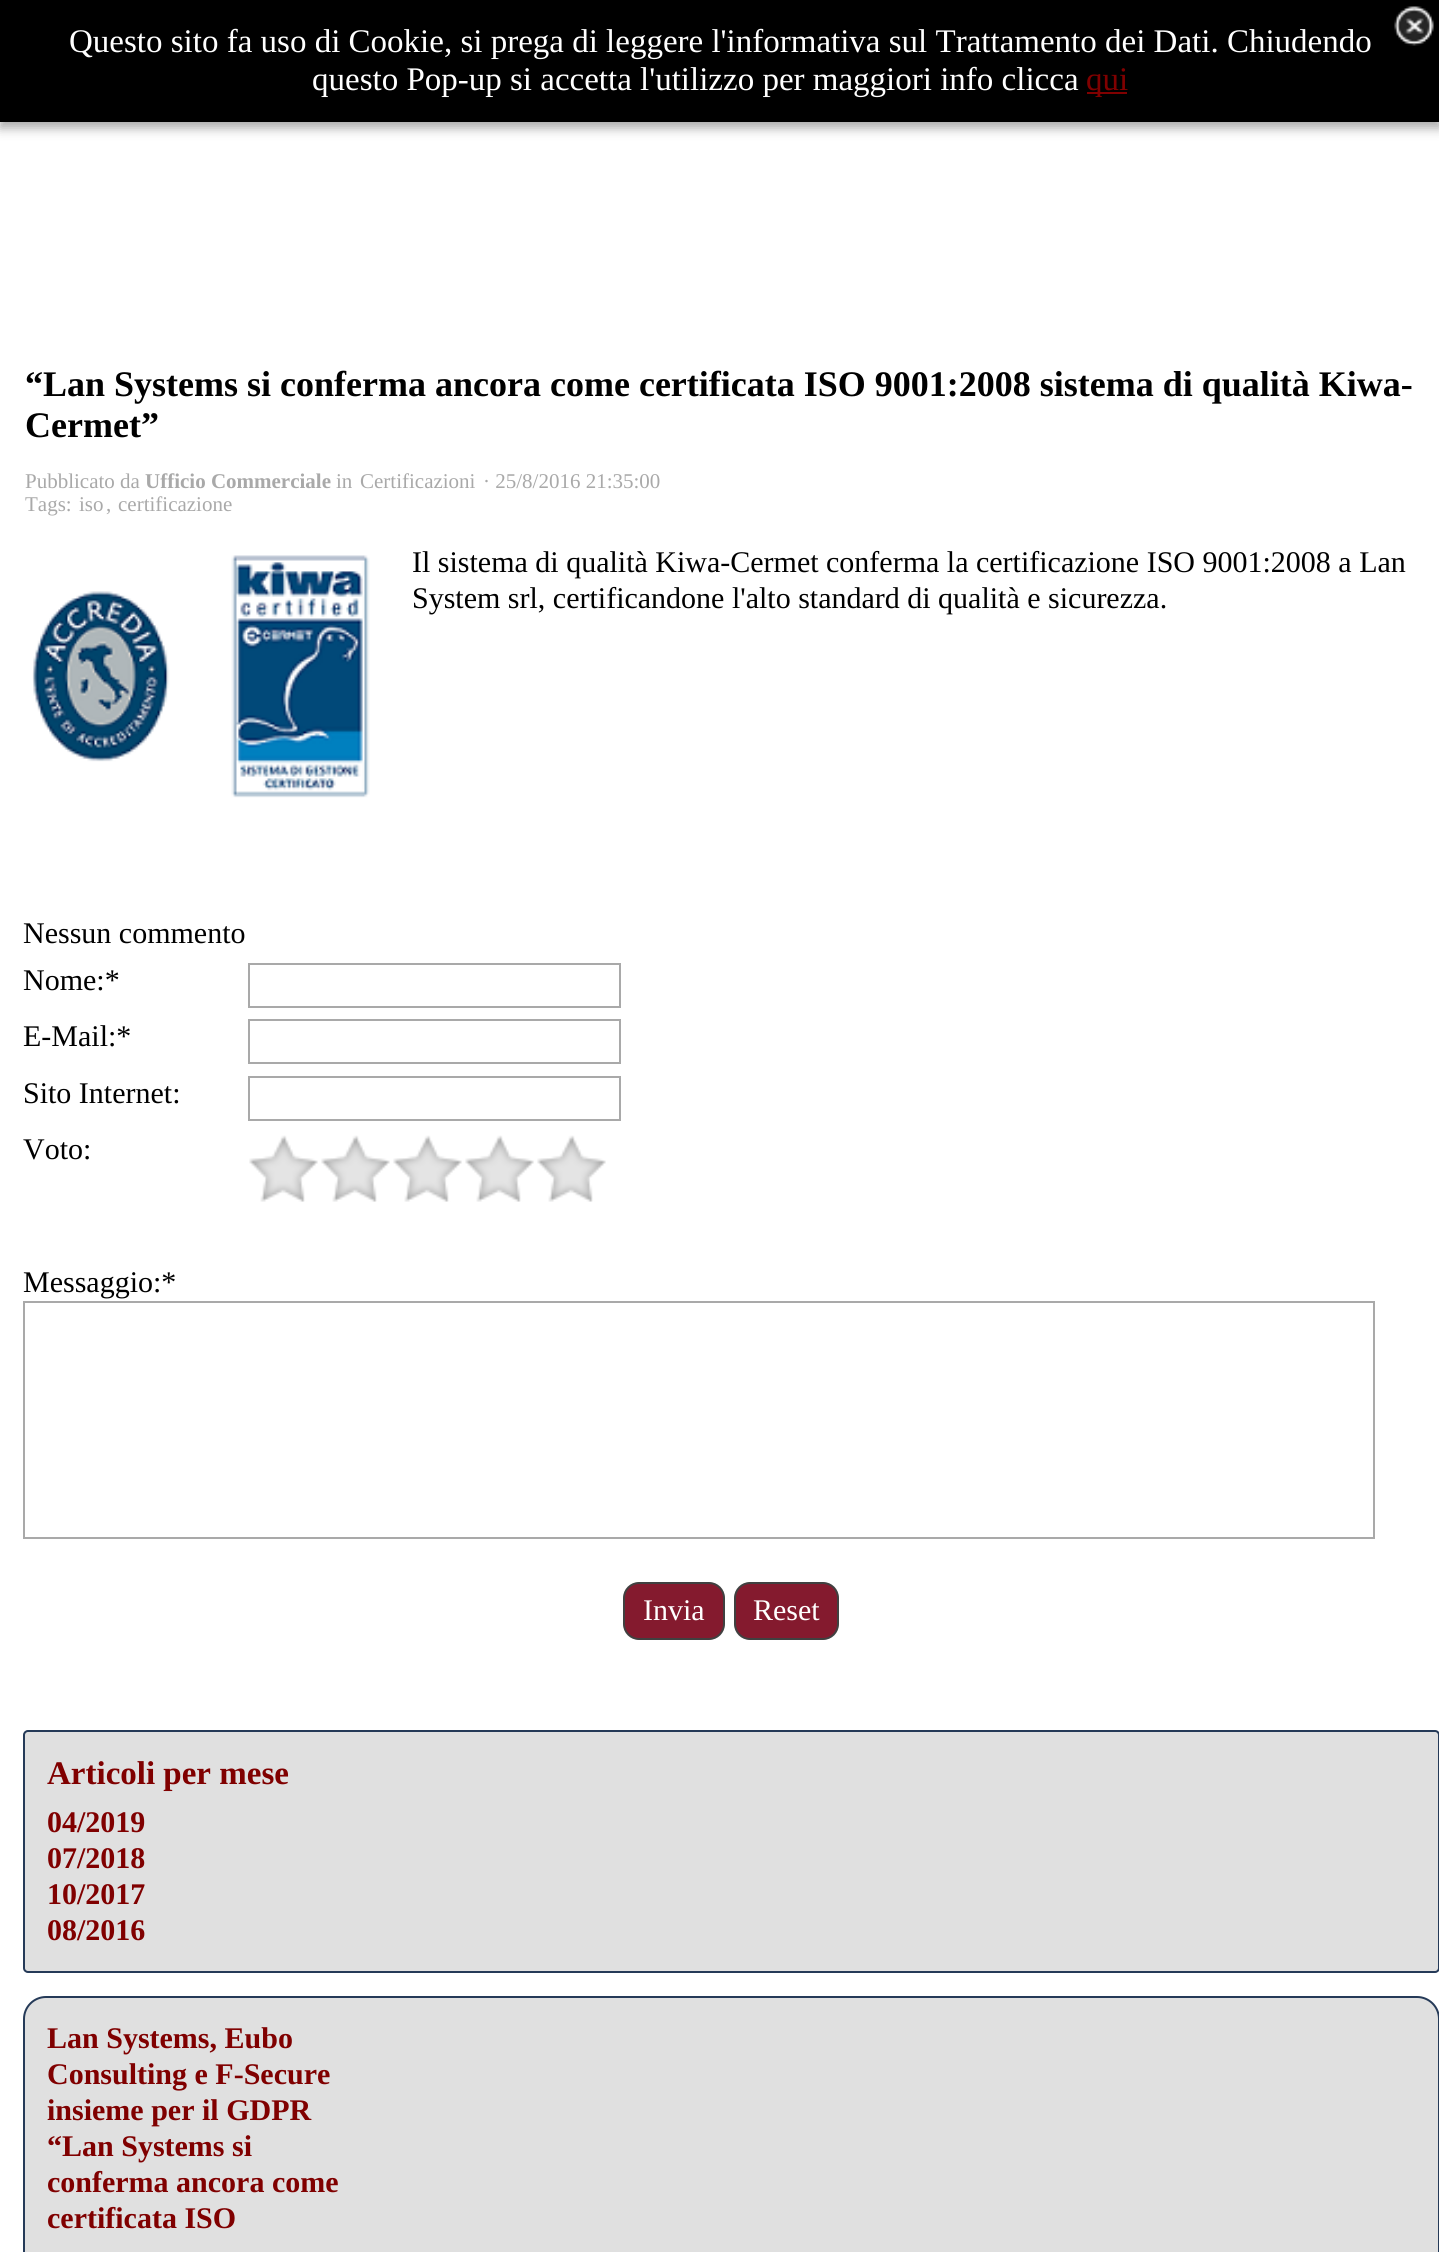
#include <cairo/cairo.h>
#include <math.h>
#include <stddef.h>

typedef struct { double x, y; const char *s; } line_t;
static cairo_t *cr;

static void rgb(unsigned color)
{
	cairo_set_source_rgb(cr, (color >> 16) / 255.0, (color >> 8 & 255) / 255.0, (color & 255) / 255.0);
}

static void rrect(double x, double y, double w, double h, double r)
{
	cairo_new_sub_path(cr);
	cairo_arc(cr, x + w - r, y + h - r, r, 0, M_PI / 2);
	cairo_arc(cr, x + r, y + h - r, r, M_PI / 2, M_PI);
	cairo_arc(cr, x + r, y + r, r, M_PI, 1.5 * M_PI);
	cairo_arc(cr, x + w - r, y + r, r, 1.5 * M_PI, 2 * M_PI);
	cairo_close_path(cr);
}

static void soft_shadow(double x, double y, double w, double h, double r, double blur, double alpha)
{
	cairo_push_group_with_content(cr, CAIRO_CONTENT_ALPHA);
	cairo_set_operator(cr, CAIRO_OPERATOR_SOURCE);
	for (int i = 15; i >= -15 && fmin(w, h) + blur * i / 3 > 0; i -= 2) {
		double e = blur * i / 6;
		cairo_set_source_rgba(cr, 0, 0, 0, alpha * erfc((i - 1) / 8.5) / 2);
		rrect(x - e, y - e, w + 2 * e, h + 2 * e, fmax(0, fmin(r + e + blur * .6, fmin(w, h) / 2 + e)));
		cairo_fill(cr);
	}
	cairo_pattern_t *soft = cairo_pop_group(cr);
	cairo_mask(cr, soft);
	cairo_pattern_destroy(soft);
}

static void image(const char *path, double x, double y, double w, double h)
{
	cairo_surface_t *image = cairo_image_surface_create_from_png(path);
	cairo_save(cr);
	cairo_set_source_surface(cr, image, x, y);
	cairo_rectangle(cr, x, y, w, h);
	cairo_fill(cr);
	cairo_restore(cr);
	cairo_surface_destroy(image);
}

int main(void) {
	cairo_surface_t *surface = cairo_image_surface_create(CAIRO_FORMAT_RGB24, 1439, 2252);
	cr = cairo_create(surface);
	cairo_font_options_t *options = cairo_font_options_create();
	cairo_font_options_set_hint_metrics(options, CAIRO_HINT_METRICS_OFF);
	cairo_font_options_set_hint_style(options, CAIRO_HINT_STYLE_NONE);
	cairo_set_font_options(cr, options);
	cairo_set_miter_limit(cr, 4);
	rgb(0xffffff);
	cairo_paint(cr);
	rgb(0xa9a9a9);
	soft_shadow(0, 7, 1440, 121, 0, 5.5, 1);
	rgb(0x000000);
	cairo_rectangle(cr, 0, 0, 1439, 122);
	cairo_fill(cr);
	rgb(0x800000);
	cairo_rectangle(cr, 1087, 92, 40, 2);
	cairo_fill(cr);
	image("img/1.png", 1394, 6, 40, 40);
	image("img/2.png", 32, 555, 338, 243);
	cairo_rectangle(cr, 249, 964, 371, 43);
	rgb(0xa9a9a9);
	cairo_stroke(cr);
	cairo_rectangle(cr, 249, 1020, 371, 43);
	cairo_stroke(cr);
	cairo_rectangle(cr, 249, 1077, 371, 43);
	cairo_stroke(cr);
	image("img/3.png", 249, 1135, 357, 67);
	cairo_rectangle(cr, 24, 1302, 1350, 236);
	cairo_stroke(cr);
	rgb(0x841a2e);
	rrect(624, 1583, 100, 56, 15);
	cairo_fill_preserve(cr);
	rgb(0x404040);
	cairo_stroke(cr);
	rgb(0x841a2e);
	rrect(735, 1583, 103, 56, 15);
	cairo_fill_preserve(cr);
	rgb(0x404040);
	cairo_stroke(cr);
	rgb(0xe0e0e0);
	rrect(24, 1731, 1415, 241, 4);
	cairo_fill_preserve(cr);
	rgb(0x253a58);
	cairo_stroke(cr);
	rgb(0xe0e0e0);
	rrect(24, 1997, 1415, 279, 22);
	cairo_fill_preserve(cr);
	rgb(0x253a58);
	cairo_stroke(cr);
	cairo_select_font_face(cr, "Liberation Serif", CAIRO_FONT_SLANT_NORMAL, CAIRO_FONT_WEIGHT_NORMAL);
	cairo_set_font_size(cr, 33);
	rgb(0xffffff);
	cairo_move_to(cr, 69, 52);
	cairo_show_text(cr, "Questo sito fa uso di Cookie, si prega di leggere l'informativa sul Trattamento dei Dati. Chiudendo");
	cairo_move_to(cr, 312, 90);
	cairo_show_text(cr, "questo Pop-up si accetta l'utilizzo per maggiori info clicca");
	rgb(0x800000);
	cairo_move_to(cr, 1086, 90);
	cairo_show_text(cr, "qui");
	cairo_select_font_face(cr, "Liberation Serif", CAIRO_FONT_SLANT_NORMAL, CAIRO_FONT_WEIGHT_BOLD);
	cairo_set_font_size(cr, 36);
	rgb(0x000000);
	cairo_move_to(cr, 25, 396);
	cairo_show_text(cr, "“Lan Systems si conferma ancora come certificata ISO 9001:2008 sistema di qualità Kiwa-");
	cairo_move_to(cr, 25, 437);
	cairo_show_text(cr, "Cermet”");
	cairo_select_font_face(cr, "Liberation Serif", CAIRO_FONT_SLANT_NORMAL, CAIRO_FONT_WEIGHT_NORMAL);
	cairo_set_font_size(cr, 21);
	rgb(0xa9a9a9);
	cairo_move_to(cr, 25, 488);
	cairo_show_text(cr, "Pubblicato da");
	cairo_select_font_face(cr, "Liberation Serif", CAIRO_FONT_SLANT_NORMAL, CAIRO_FONT_WEIGHT_BOLD);
	cairo_move_to(cr, 145, 488);
	cairo_show_text(cr, "Ufficio Commerciale");
	cairo_select_font_face(cr, "Liberation Serif", CAIRO_FONT_SLANT_NORMAL, CAIRO_FONT_WEIGHT_NORMAL);
	{
		static const line_t items[] = {
			{336, 488, "in"},
			{360, 488, "Certificazioni"},
			{483, 488, "· 25/8/2016 21:35:00"},
			{25, 511, "Tags:"},
			{79, 511, "iso"},
			{106, 511, ","},
			{118, 511, "certificazione"},
		};
		for (size_t i = 0; i < sizeof items / sizeof *items; i++) {
			cairo_move_to(cr, items[i].x, items[i].y);
			cairo_show_text(cr, items[i].s);
		}
	}
	cairo_set_font_size(cr, 30);
	rgb(0x000000);
	{
		static const line_t items[] = {
			{412, 572, "Il sistema di qualità Kiwa-Cermet conferma la certificazione ISO 9001:2008 a Lan"},
			{412, 608, "System srl, certificandone l'alto standard di qualità e sicurezza."},
			{23, 943, "Nessun commento"},
			{23, 990, "Nome:*"},
			{23, 1046, "E-Mail:*"},
			{23, 1103, "Sito Internet:"},
			{23, 1159, "Voto:"},
			{23, 1292, "Messaggio:*"},
		};
		for (size_t i = 0; i < sizeof items / sizeof *items; i++) {
			cairo_move_to(cr, items[i].x, items[i].y);
			cairo_show_text(cr, items[i].s);
		}
	}
	rgb(0xffffff);
	cairo_move_to(cr, 643, 1620);
	cairo_show_text(cr, "Invia");
	cairo_move_to(cr, 753, 1620);
	cairo_show_text(cr, "Reset");
	cairo_select_font_face(cr, "Liberation Serif", CAIRO_FONT_SLANT_NORMAL, CAIRO_FONT_WEIGHT_BOLD);
	cairo_set_font_size(cr, 33);
	rgb(0x800000);
	cairo_move_to(cr, 47, 1784);
	cairo_show_text(cr, "Articoli per mese");
	cairo_set_font_size(cr, 30);
	{
		static const line_t items[] = {
			{47, 1832, "04/2019"},
			{47, 1868, "07/2018"},
			{47, 1904, "10/2017"},
			{47, 1940, "08/2016"},
			{47, 2048, "Lan Systems, Eubo"},
			{47, 2084, "Consulting e F-Secure"},
			{47, 2120, "insieme per il GDPR"},
			{47, 2156, "“Lan Systems si"},
			{47, 2192, "conferma ancora come"},
			{47, 2228, "certificata ISO"},
		};
		for (size_t i = 0; i < sizeof items / sizeof *items; i++) {
			cairo_move_to(cr, items[i].x, items[i].y);
			cairo_show_text(cr, items[i].s);
		}
	}
	cairo_surface_write_to_png(surface, "page.png");
	cairo_font_options_destroy(options);
	cairo_destroy(cr);
	cairo_surface_destroy(surface);
	return 0;
}
